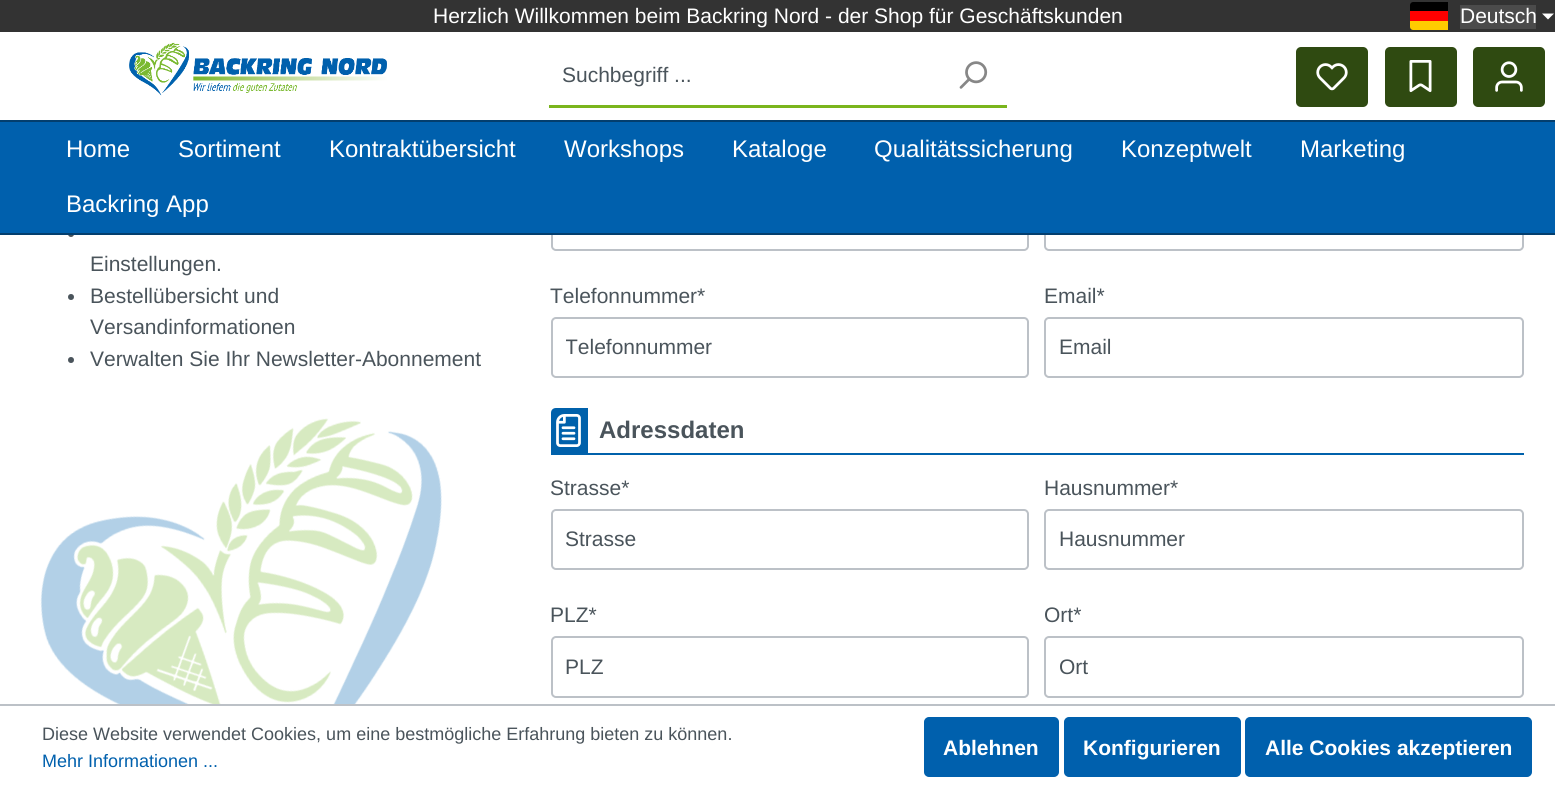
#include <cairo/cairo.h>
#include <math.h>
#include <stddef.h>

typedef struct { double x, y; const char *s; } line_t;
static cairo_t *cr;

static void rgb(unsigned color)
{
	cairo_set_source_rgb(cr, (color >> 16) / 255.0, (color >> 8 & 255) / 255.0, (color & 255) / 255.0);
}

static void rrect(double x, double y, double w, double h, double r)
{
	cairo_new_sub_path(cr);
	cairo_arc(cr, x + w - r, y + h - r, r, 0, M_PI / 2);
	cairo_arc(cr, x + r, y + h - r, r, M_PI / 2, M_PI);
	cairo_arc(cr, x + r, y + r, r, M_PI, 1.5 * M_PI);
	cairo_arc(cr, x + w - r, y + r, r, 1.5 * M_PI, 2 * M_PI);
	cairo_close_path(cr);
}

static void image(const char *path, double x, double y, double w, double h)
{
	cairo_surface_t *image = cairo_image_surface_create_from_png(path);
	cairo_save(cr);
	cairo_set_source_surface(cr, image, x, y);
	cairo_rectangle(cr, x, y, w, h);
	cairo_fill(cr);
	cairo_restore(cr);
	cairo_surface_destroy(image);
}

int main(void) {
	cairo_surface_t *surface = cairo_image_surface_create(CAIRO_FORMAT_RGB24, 1555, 788);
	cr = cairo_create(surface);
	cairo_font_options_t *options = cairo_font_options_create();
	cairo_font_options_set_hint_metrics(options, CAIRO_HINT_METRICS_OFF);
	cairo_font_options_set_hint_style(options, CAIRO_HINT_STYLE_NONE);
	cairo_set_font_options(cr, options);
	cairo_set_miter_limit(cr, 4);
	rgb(0xffffff);
	cairo_paint(cr);
	rgb(0x033e6e);
	cairo_rectangle(cr, 0, 120, 1555, 2);
	cairo_fill(cr);
	rgb(0x333333);
	cairo_rectangle(cr, 0, 0, 1555, 32);
	cairo_fill(cr);
	rgb(0x000000);
	cairo_new_path(cr);
	cairo_move_to(cr, 1413, 2);
	cairo_line_to(cr, 1448, 2);
	cairo_line_to(cr, 1448, 11);
	cairo_line_to(cr, 1410, 11);
	cairo_line_to(cr, 1410, 5);
	cairo_curve_to(cr, 1410, 3.5, 1411.5, 2, 1413, 2);
	cairo_close_path(cr);
	cairo_fill(cr);
	rgb(0xff0000);
	cairo_rectangle(cr, 1410, 11, 38, 10);
	cairo_fill(cr);
	rgb(0xffcc00);
	cairo_new_path(cr);
	cairo_move_to(cr, 1410, 21);
	cairo_line_to(cr, 1448, 21);
	cairo_line_to(cr, 1448, 30);
	cairo_line_to(cr, 1413, 30);
	cairo_curve_to(cr, 1411.5, 30, 1410, 28.5, 1410, 27);
	cairo_close_path(cr);
	cairo_fill(cr);
	rgb(0x4b4b4b);
	cairo_rectangle(cr, 1460, 5, 76, 24);
	cairo_fill(cr);
	rgb(0xffffff);
	cairo_new_path(cr);
	cairo_move_to(cr, 1542, 13.5);
	cairo_line_to(cr, 1554, 13.5);
	cairo_line_to(cr, 1548, 19.5);
	cairo_close_path(cr);
	cairo_fill(cr);
	image("img/1.png", 129, 42, 258, 54);
	rgb(0x7ab51d);
	cairo_rectangle(cr, 549, 105, 458, 3);
	cairo_fill(cr);
	image("img/2.png", 959, 61, 29, 28);
	rgb(0x2f4a11);
	rrect(1296, 47, 72, 60, 5);
	cairo_fill(cr);
	image("img/3.png", 1316, 63, 32, 28);
	rrect(1385, 47, 72, 60, 5);
	cairo_fill(cr);
	image("img/4.png", 1409, 60, 23, 33);
	rrect(1473, 47, 72, 60, 5);
	cairo_fill(cr);
	image("img/5.png", 1495, 61, 28, 31);
	rgb(0x4a545b);
	cairo_arc(cr, 71, 234, 3, 0, 2 * M_PI);
	cairo_fill(cr);
	rrect(552, 190, 476, 60, 4);
	rgb(0xbcc1c7);
	cairo_stroke(cr);
	rrect(1045, 190, 478, 60, 4);
	cairo_stroke(cr);
	rgb(0x0060ad);
	cairo_rectangle(cr, 0, 122, 1555, 111);
	cairo_fill(cr);
	rgb(0x033e6e);
	cairo_rectangle(cr, 0, 233, 1555, 2);
	cairo_fill(cr);
	rgb(0x4a545b);
	cairo_arc(cr, 71, 297, 3, 0, 2 * M_PI);
	cairo_fill(cr);
	cairo_arc(cr, 71, 360, 3, 0, 2 * M_PI);
	cairo_fill(cr);
	image("img/6.png", 40, 418, 402, 286);
	rrect(552, 318, 476, 59, 4);
	rgb(0xbcc1c7);
	cairo_stroke(cr);
	rrect(1045, 318, 478, 59, 4);
	cairo_stroke(cr);
	rgb(0x0061ab);
	cairo_rectangle(cr, 551, 453, 973, 2);
	cairo_fill(cr);
	cairo_new_path(cr);
	cairo_move_to(cr, 556, 408);
	cairo_line_to(cr, 588, 408);
	cairo_line_to(cr, 588, 453);
	cairo_line_to(cr, 551, 453);
	cairo_line_to(cr, 551, 413);
	cairo_curve_to(cr, 551, 410, 553, 408, 556, 408);
	cairo_close_path(cr);
	cairo_fill(cr);
	image("img/7.png", 556, 414, 25, 33);
	rrect(552, 510, 476, 59, 4);
	rgb(0xbcc1c7);
	cairo_stroke(cr);
	rrect(1045, 510, 478, 59, 4);
	cairo_stroke(cr);
	rrect(552, 637, 476, 60, 4);
	cairo_stroke(cr);
	rrect(1045, 637, 478, 60, 4);
	cairo_stroke(cr);
	cairo_rectangle(cr, 0, 704, 1555, 2);
	cairo_fill(cr);
	rgb(0x0060ad);
	rrect(925, 718, 133, 58, 4);
	cairo_fill_preserve(cr);
	cairo_stroke(cr);
	rrect(1065, 718, 175, 58, 4);
	cairo_fill_preserve(cr);
	cairo_stroke(cr);
	rrect(1246, 718, 285, 58, 4);
	cairo_fill_preserve(cr);
	cairo_stroke(cr);
	cairo_select_font_face(cr, "Liberation Sans", CAIRO_FONT_SLANT_NORMAL, CAIRO_FONT_WEIGHT_NORMAL);
	cairo_set_font_size(cr, 21);
	rgb(0xffffff);
	cairo_move_to(cr, 433, 23);
	cairo_show_text(cr, "Herzlich Willkommen beim Backring Nord - der Shop für Geschäftskunden");
	cairo_move_to(cr, 1460, 23);
	cairo_show_text(cr, "Deutsch");
	rgb(0x4a545b);
	cairo_move_to(cr, 562, 82);
	cairo_show_text(cr, "Suchbegriff ...");
	cairo_set_font_size(cr, 24);
	rgb(0xffffff);
	{
		static const line_t items[] = {
			{66, 157, "Home"},
			{178, 157, "Sortiment"},
			{329, 157, "Kontraktübersicht"},
			{564, 157, "Workshops"},
			{732, 157, "Kataloge"},
			{874, 157, "Qualitätssicherung"},
			{1121, 157, "Konzeptwelt"},
			{1300, 157, "Marketing"},
			{66, 212, "Backring App"},
		};
		for (size_t i = 0; i < sizeof items / sizeof *items; i++) {
			cairo_move_to(cr, items[i].x, items[i].y);
			cairo_show_text(cr, items[i].s);
		}
	}
	cairo_set_font_size(cr, 21);
	rgb(0x4a545b);
	{
		static const line_t items[] = {
			{90, 271, "Einstellungen."},
			{90, 303, "Bestellübersicht und"},
			{90, 334, "Versandinformationen"},
			{90, 366, "Verwalten Sie Ihr Newsletter-Abonnement"},
			{550, 303, "Telefonnummer*"},
		};
		for (size_t i = 0; i < sizeof items / sizeof *items; i++) {
			cairo_move_to(cr, items[i].x, items[i].y);
			cairo_show_text(cr, items[i].s);
		}
	}
	cairo_save(cr);
	cairo_rectangle(cr, 566, 335, 448, 24);
	cairo_clip(cr);
	cairo_move_to(cr, 565, 354);
	cairo_show_text(cr, "Telefonnummer");
	cairo_restore(cr);
	cairo_move_to(cr, 1044, 303);
	cairo_show_text(cr, "Email*");
	cairo_move_to(cr, 1059, 354);
	cairo_show_text(cr, "Email");
	cairo_select_font_face(cr, "Liberation Sans", CAIRO_FONT_SLANT_NORMAL, CAIRO_FONT_WEIGHT_BOLD);
	cairo_set_font_size(cr, 24);
	cairo_move_to(cr, 599, 438);
	cairo_show_text(cr, "Adressdaten");
	cairo_select_font_face(cr, "Liberation Sans", CAIRO_FONT_SLANT_NORMAL, CAIRO_FONT_WEIGHT_NORMAL);
	cairo_set_font_size(cr, 21);
	{
		static const line_t items[] = {
			{550, 495, "Strasse*"},
			{565, 546, "Strasse"},
			{1044, 495, "Hausnummer*"},
			{1059, 546, "Hausnummer"},
			{550, 622, "PLZ*"},
			{565, 674, "PLZ"},
			{1044, 622, "Ort*"},
			{1059, 674, "Ort"},
		};
		for (size_t i = 0; i < sizeof items / sizeof *items; i++) {
			cairo_move_to(cr, items[i].x, items[i].y);
			cairo_show_text(cr, items[i].s);
		}
	}
	cairo_set_font_size(cr, 18);
	cairo_move_to(cr, 42, 740);
	cairo_show_text(cr, "Diese Website verwendet Cookies, um eine bestmögliche Erfahrung bieten zu können.");
	rgb(0x0060ad);
	cairo_move_to(cr, 42, 767);
	cairo_show_text(cr, "Mehr Informationen ...");
	cairo_select_font_face(cr, "Liberation Sans", CAIRO_FONT_SLANT_NORMAL, CAIRO_FONT_WEIGHT_BOLD);
	cairo_set_font_size(cr, 21);
	rgb(0xffffff);
	{
		static const line_t items[] = {
			{943, 755, "Ablehnen"},
			{1083, 755, "Konfigurieren"},
			{1265, 755, "Alle Cookies akzeptieren"},
		};
		for (size_t i = 0; i < sizeof items / sizeof *items; i++) {
			cairo_move_to(cr, items[i].x, items[i].y);
			cairo_show_text(cr, items[i].s);
		}
	}
	cairo_surface_write_to_png(surface, "page.png");
	cairo_font_options_destroy(options);
	cairo_destroy(cr);
	cairo_surface_destroy(surface);
	return 0;
}
